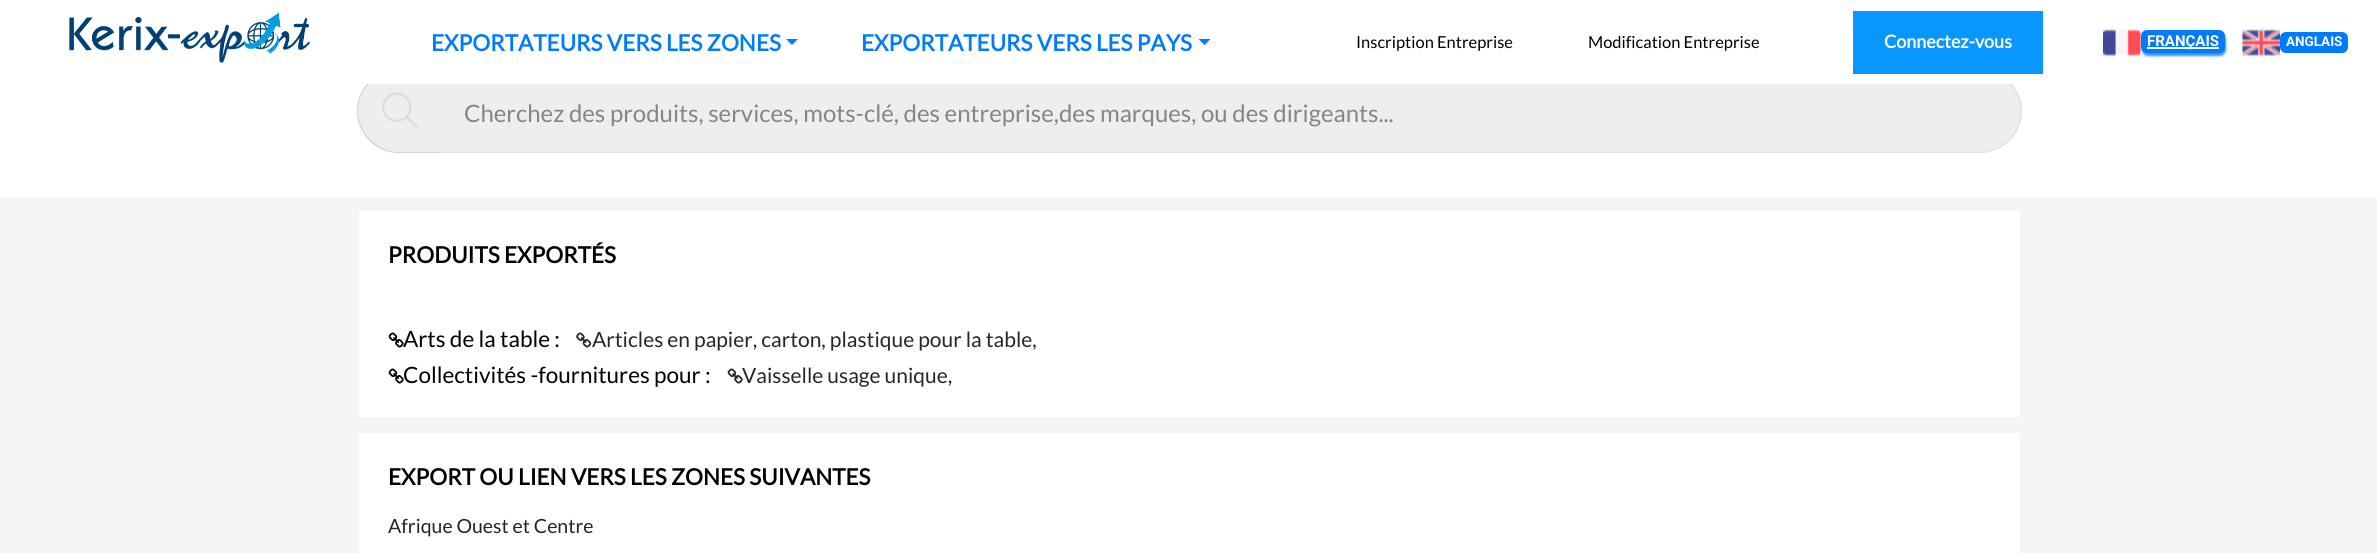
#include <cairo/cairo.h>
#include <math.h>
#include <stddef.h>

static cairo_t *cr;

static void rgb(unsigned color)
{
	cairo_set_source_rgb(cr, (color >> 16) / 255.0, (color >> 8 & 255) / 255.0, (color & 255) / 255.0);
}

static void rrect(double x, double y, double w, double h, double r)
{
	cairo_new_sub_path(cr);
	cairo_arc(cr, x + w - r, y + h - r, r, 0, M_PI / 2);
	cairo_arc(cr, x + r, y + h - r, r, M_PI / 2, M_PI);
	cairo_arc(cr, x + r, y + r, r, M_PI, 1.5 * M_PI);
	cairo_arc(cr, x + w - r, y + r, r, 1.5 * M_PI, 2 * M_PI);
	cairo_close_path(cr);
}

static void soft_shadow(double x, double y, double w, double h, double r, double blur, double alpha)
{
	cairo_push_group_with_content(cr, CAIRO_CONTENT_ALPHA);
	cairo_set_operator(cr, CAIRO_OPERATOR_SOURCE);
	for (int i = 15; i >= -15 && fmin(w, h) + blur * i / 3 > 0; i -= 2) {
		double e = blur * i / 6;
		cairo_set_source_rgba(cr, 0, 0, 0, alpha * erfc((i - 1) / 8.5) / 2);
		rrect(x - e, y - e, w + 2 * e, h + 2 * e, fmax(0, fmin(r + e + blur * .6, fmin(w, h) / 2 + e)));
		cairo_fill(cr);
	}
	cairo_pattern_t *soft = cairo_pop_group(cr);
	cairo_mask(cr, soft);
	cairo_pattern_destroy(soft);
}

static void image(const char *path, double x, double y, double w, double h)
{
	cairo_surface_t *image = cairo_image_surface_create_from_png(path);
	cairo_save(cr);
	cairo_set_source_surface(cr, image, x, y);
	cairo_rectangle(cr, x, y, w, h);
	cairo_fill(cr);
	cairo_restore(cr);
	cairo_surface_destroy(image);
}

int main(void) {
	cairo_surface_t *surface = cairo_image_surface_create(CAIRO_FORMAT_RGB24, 2377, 553);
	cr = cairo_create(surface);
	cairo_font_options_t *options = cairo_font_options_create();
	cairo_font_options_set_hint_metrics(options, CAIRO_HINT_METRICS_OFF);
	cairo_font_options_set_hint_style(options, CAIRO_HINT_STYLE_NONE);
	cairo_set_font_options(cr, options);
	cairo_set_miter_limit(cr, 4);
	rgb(0xf5f5f5);
	cairo_paint(cr);
	rgb(0xffffff);
	cairo_rectangle(cr, 0, 84, 2377, 114);
	cairo_fill(cr);
	rgb(0xefeeee);
	cairo_new_path(cr);
	cairo_move_to(cr, 399, 69);
	cairo_line_to(cr, 443, 69);
	cairo_line_to(cr, 443, 153);
	cairo_line_to(cr, 399, 153);
	cairo_curve_to(cr, 376, 153, 357, 134, 357, 111);
	cairo_curve_to(cr, 357, 88, 376, 69, 399, 69);
	cairo_close_path(cr);
	cairo_fill(cr);
	rgb(0xced4da);
	cairo_set_fill_rule(cr, CAIRO_FILL_RULE_EVEN_ODD);
	cairo_new_path(cr);
	cairo_move_to(cr, 399, 69);
	cairo_line_to(cr, 442, 69);
	cairo_line_to(cr, 442, 153);
	cairo_line_to(cr, 399, 153);
	cairo_curve_to(cr, 376, 153, 357, 134, 357, 111);
	cairo_curve_to(cr, 357, 88, 376, 69, 399, 69);
	cairo_close_path(cr);
	cairo_move_to(cr, 399, 70);
	cairo_line_to(cr, 442, 70);
	cairo_line_to(cr, 442, 152);
	cairo_line_to(cr, 399, 152);
	cairo_curve_to(cr, 377, 152, 358, 133, 358, 111);
	cairo_curve_to(cr, 358, 89, 377, 70, 399, 70);
	cairo_close_path(cr);
	cairo_fill(cr);
	rgb(0xefeeee);
	cairo_new_path(cr);
	cairo_move_to(cr, 441, 69);
	cairo_line_to(cr, 1980, 69);
	cairo_curve_to(cr, 2003, 69, 2022, 88, 2022, 111);
	cairo_curve_to(cr, 2022, 134, 2003, 153, 1980, 153);
	cairo_line_to(cr, 441, 153);
	cairo_close_path(cr);
	cairo_fill(cr);
	rgb(0xe3e3e3);
	cairo_new_path(cr);
	cairo_move_to(cr, 441, 69);
	cairo_line_to(cr, 1980, 69);
	cairo_curve_to(cr, 2003, 69, 2022, 88, 2022, 111);
	cairo_curve_to(cr, 2022, 134, 2003, 153, 1980, 153);
	cairo_line_to(cr, 441, 153);
	cairo_close_path(cr);
	cairo_move_to(cr, 441, 70);
	cairo_line_to(cr, 1980, 70);
	cairo_curve_to(cr, 2002, 70, 2020, 89, 2020, 111);
	cairo_curve_to(cr, 2020, 133, 2002, 152, 1980, 152);
	cairo_line_to(cr, 441, 152);
	cairo_close_path(cr);
	cairo_fill(cr);
	rgb(0xffffff);
	cairo_rectangle(cr, 0, 0, 2377, 84);
	cairo_fill(cr);
	image("img/1.png", 69, 13, 241, 50);
	rgb(0x007bff);
	cairo_set_fill_rule(cr, CAIRO_FILL_RULE_WINDING);
	cairo_new_path(cr);
	cairo_move_to(cr, 786, 39);
	cairo_line_to(cr, 798, 39);
	cairo_line_to(cr, 792, 45);
	cairo_close_path(cr);
	cairo_fill(cr);
	cairo_new_path(cr);
	cairo_move_to(cr, 1198.5, 39);
	cairo_line_to(cr, 1210.5, 39);
	cairo_line_to(cr, 1204.5, 45);
	cairo_close_path(cr);
	cairo_fill(cr);
	rgb(0x0896ff);
	cairo_rectangle(cr, 1853, 11, 190, 63);
	cairo_fill(cr);
	image("img/2.png", 2103, 29, 38, 28);
	rgb(0x007bff);
	soft_shadow(2142, 33, 84, 23, 6, 1, 0.79);
	rgb(0x007bff);
	rrect(2141, 30, 84, 23, 6);
	cairo_fill(cr);
	rgb(0xffffff);
	cairo_rectangle(cr, 2147, 47, 72, 2);
	cairo_fill(cr);
	image("img/3.png", 2242, 29, 38, 28);
	rgb(0x007bff);
	rrect(2280, 32, 68, 21, 6);
	cairo_fill(cr);
	image("img/4.png", 382, 92, 37, 37);
	rgb(0xffffff);
	cairo_rectangle(cr, 359, 211, 1661, 206);
	cairo_fill(cr);
	image("img/5.png", 388, 332, 16, 16);
	image("img/6.png", 576, 332, 16, 16);
	image("img/5.png", 388, 368, 16, 16);
	image("img/7.png", 727, 368, 16, 16);
	cairo_rectangle(cr, 359, 433, 1661, 120);
	cairo_fill(cr);
	cairo_select_font_face(cr, "Lato", CAIRO_FONT_SLANT_NORMAL, CAIRO_FONT_WEIGHT_BOLD);
	cairo_set_font_size(cr, 22.5);
	rgb(0x007bff);
	cairo_move_to(cr, 431, 51);
	cairo_show_text(cr, "EXPORTATEURS VERS LES ZONES");
	cairo_move_to(cr, 861, 51);
	cairo_show_text(cr, "EXPORTATEURS VERS LES PAYS");
	cairo_select_font_face(cr, "Lato", CAIRO_FONT_SLANT_NORMAL, CAIRO_FONT_WEIGHT_NORMAL);
	cairo_set_font_size(cr, 16.5);
	rgb(0x000000);
	cairo_move_to(cr, 1356, 48);
	cairo_show_text(cr, "Inscription Entreprise");
	cairo_move_to(cr, 1588, 48);
	cairo_show_text(cr, "Modification Entreprise");
	cairo_select_font_face(cr, "Lato", CAIRO_FONT_SLANT_NORMAL, CAIRO_FONT_WEIGHT_BOLD);
	cairo_set_font_size(cr, 18);
	rgb(0xffffff);
	cairo_move_to(cr, 1884, 48);
	cairo_show_text(cr, "Connectez-vous");
	cairo_select_font_face(cr, "Roboto", CAIRO_FONT_SLANT_NORMAL, CAIRO_FONT_WEIGHT_BOLD);
	cairo_set_font_size(cr, 15);
	cairo_move_to(cr, 2147, 46);
	cairo_show_text(cr, "FRANÇAIS");
	cairo_set_font_size(cr, 13.5);
	cairo_move_to(cr, 2286, 46);
	cairo_show_text(cr, "ANGLAIS");
	cairo_select_font_face(cr, "Lato", CAIRO_FONT_SLANT_NORMAL, CAIRO_FONT_WEIGHT_NORMAL);
	cairo_set_font_size(cr, 24);
	rgb(0x858585);
	cairo_move_to(cr, 464, 122);
	cairo_show_text(cr, "Cherchez des produits, services, mots-clé, des entreprise,des marques, ou des dirigeants...");
	cairo_select_font_face(cr, "Lato", CAIRO_FONT_SLANT_NORMAL, CAIRO_FONT_WEIGHT_BOLD);
	cairo_set_font_size(cr, 22.5);
	rgb(0x000000);
	cairo_move_to(cr, 388, 263);
	cairo_show_text(cr, "PRODUITS EXPORTÉS");
	cairo_select_font_face(cr, "Lato", CAIRO_FONT_SLANT_NORMAL, CAIRO_FONT_WEIGHT_NORMAL);
	cairo_move_to(cr, 403, 347);
	cairo_show_text(cr, "Arts de la table :");
	cairo_set_font_size(cr, 21);
	rgb(0x272626);
	cairo_move_to(cr, 592, 347);
	cairo_show_text(cr, "Articles en papier, carton, plastique pour la table,");
	cairo_set_font_size(cr, 22.5);
	rgb(0x000000);
	cairo_move_to(cr, 403, 383);
	cairo_show_text(cr, "Collectivités -fournitures pour :");
	cairo_set_font_size(cr, 21);
	rgb(0x272626);
	cairo_move_to(cr, 742, 383);
	cairo_show_text(cr, "Vaisselle usage unique,");
	cairo_select_font_face(cr, "Lato", CAIRO_FONT_SLANT_NORMAL, CAIRO_FONT_WEIGHT_BOLD);
	cairo_set_font_size(cr, 22.5);
	rgb(0x000000);
	cairo_move_to(cr, 388, 485);
	cairo_show_text(cr, "EXPORT OU LIEN VERS LES ZONES SUIVANTES");
	cairo_select_font_face(cr, "Lato", CAIRO_FONT_SLANT_NORMAL, CAIRO_FONT_WEIGHT_NORMAL);
	cairo_set_font_size(cr, 19.5);
	rgb(0x212529);
	cairo_move_to(cr, 388, 533);
	cairo_show_text(cr, "Afrique Ouest et Centre");
	cairo_surface_write_to_png(surface, "page.png");
	cairo_font_options_destroy(options);
	cairo_destroy(cr);
	cairo_surface_destroy(surface);
	return 0;
}
